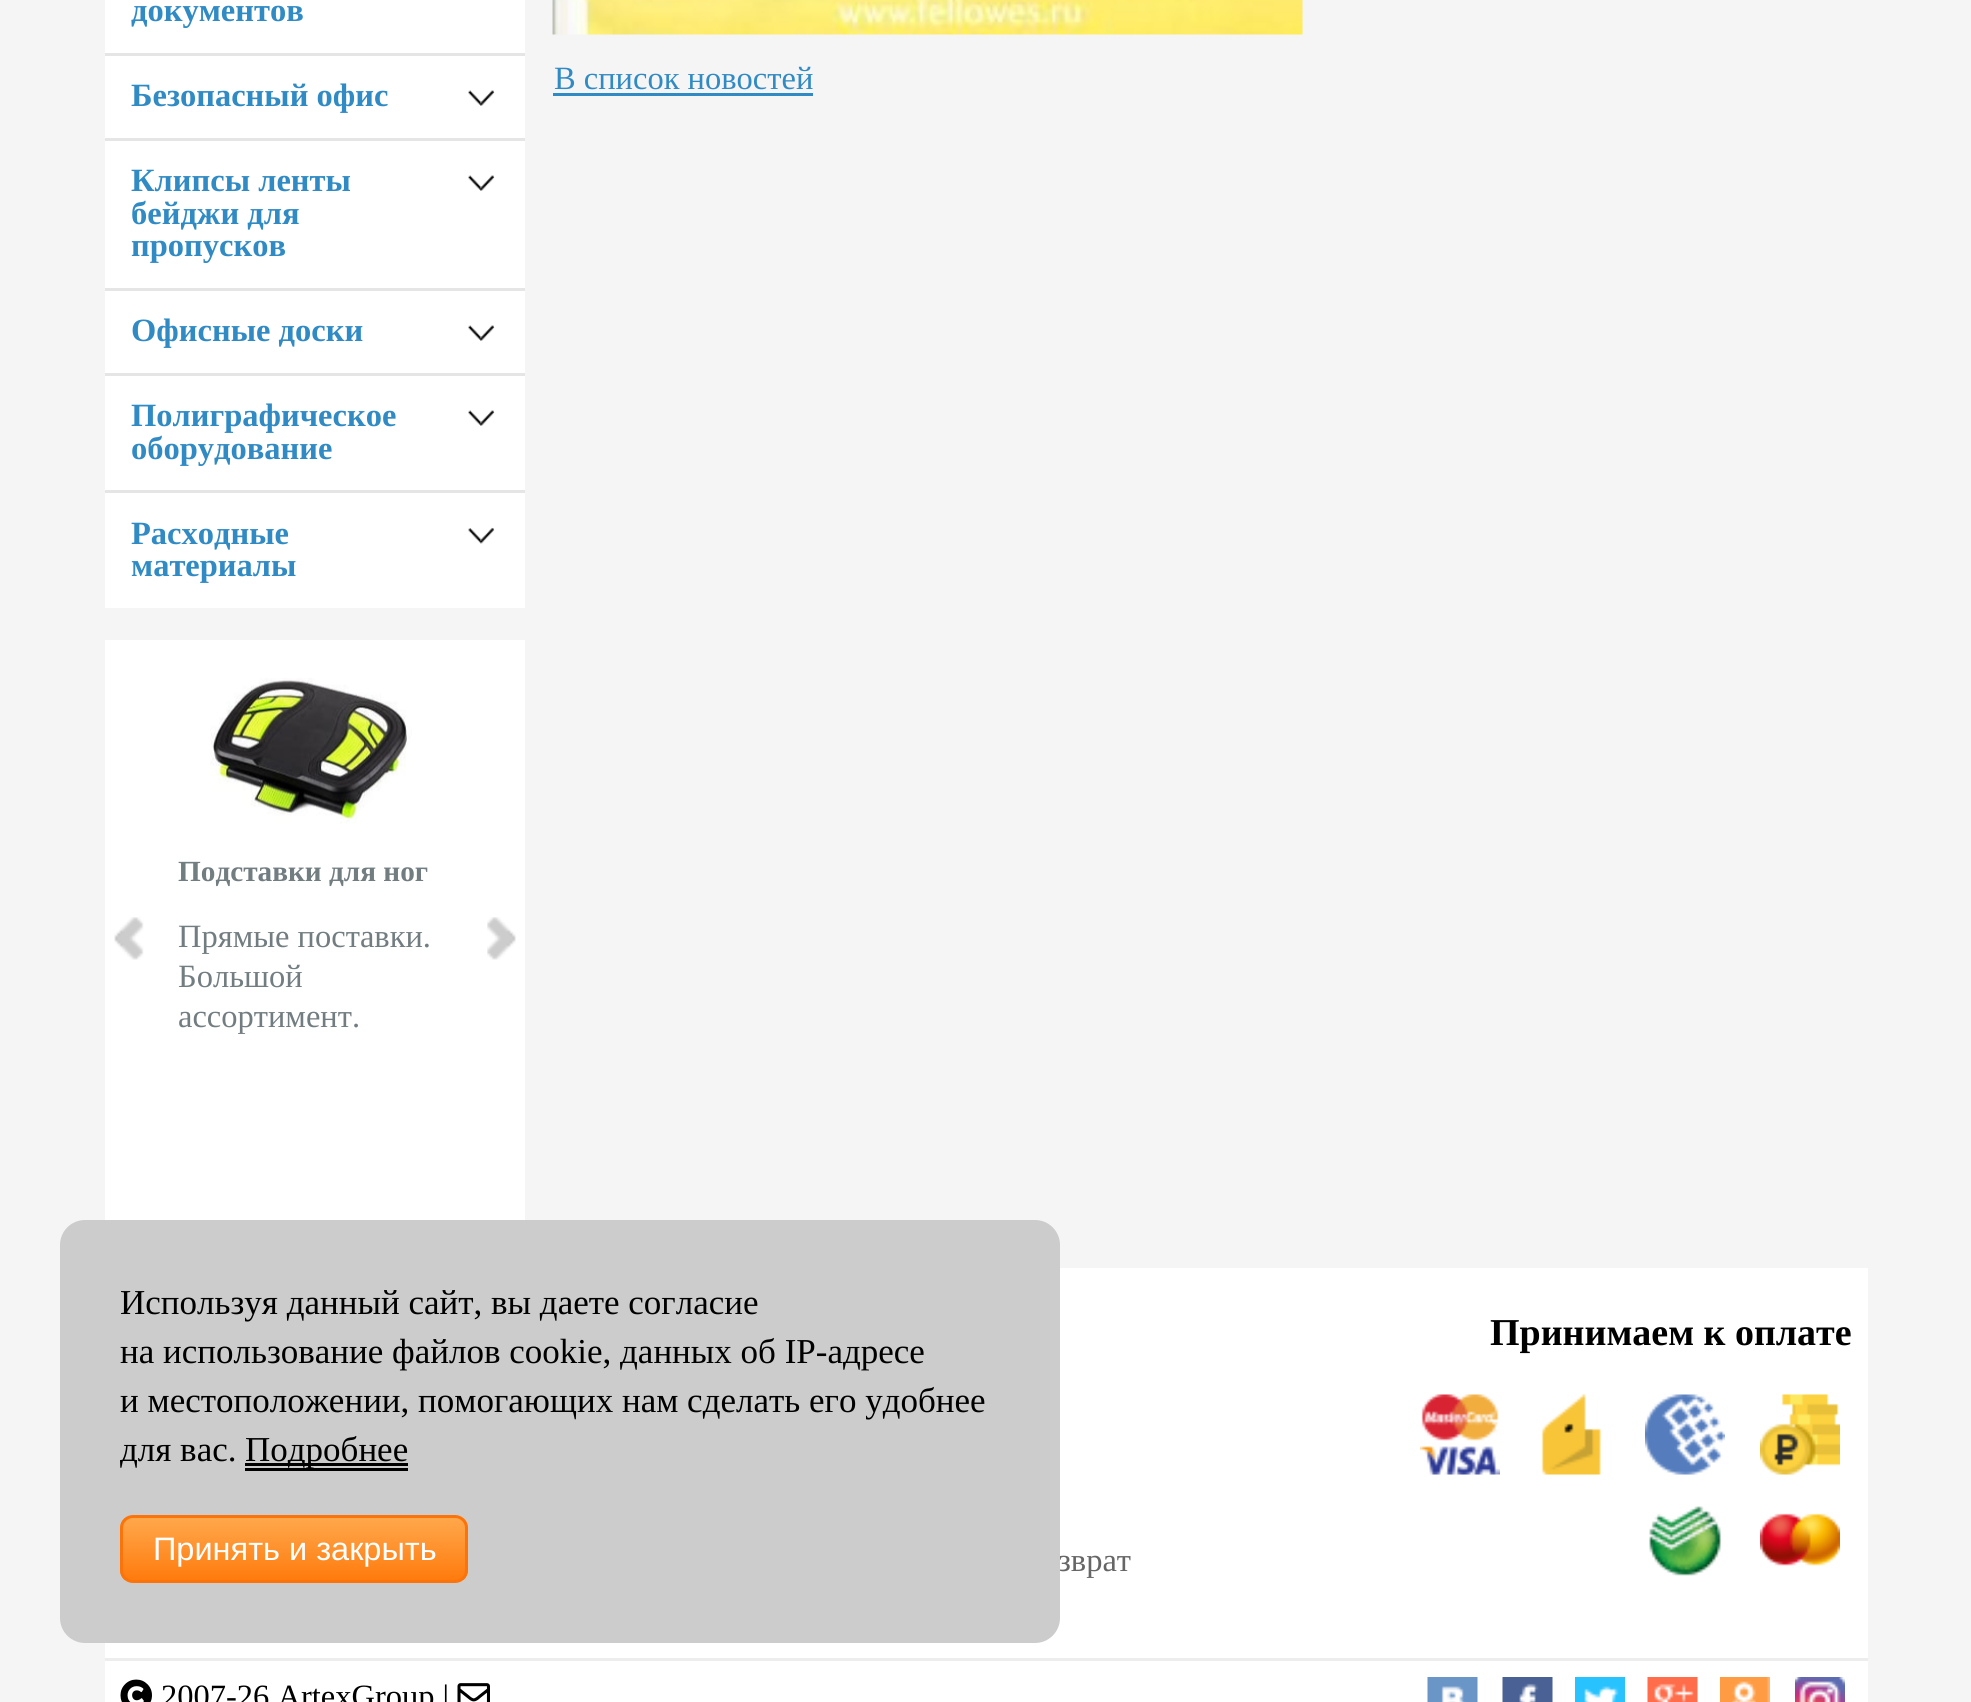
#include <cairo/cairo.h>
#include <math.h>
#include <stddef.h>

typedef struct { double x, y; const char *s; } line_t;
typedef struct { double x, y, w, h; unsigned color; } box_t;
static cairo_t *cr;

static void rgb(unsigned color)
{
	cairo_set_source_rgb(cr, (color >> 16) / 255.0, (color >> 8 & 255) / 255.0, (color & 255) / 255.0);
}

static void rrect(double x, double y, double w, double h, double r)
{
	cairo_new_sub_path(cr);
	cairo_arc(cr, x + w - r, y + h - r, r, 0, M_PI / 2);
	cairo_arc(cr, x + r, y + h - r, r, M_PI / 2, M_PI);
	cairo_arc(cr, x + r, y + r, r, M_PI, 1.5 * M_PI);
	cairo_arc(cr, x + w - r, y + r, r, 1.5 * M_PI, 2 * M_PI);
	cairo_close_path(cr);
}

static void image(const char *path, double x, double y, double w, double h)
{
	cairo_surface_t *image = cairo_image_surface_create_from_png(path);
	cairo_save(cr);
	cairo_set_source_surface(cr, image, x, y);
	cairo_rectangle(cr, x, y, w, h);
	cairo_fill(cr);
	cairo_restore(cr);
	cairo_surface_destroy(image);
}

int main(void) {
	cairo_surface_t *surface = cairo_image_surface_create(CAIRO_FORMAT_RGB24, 1971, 1702);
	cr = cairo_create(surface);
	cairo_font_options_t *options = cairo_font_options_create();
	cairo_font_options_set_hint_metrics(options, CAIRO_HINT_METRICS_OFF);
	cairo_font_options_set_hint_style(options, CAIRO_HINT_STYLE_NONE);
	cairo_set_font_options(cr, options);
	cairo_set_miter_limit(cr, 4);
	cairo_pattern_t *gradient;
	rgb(0xf5f5f5);
	cairo_paint(cr);
	{
		static const box_t items[] = {
			{105, 0, 420, 608, 0xffffff},
			{105, 53, 420, 3, 0xe5e5e5},
			{105, 138, 420, 3, 0xe5e5e5},
		};
		for (size_t i = 0; i < sizeof items / sizeof *items; i++) {
			rgb(items[i].color);
			cairo_rectangle(cr, items[i].x, items[i].y, items[i].w, items[i].h);
			cairo_fill(cr);
		}
	}
	image("img/1.png", 468, 90, 27, 16);
	cairo_rectangle(cr, 105, 288, 420, 3);
	cairo_fill(cr);
	image("img/1.png", 468, 175, 27, 16);
	cairo_rectangle(cr, 105, 373, 420, 3);
	cairo_fill(cr);
	image("img/1.png", 468, 325, 27, 16);
	cairo_rectangle(cr, 105, 490, 420, 3);
	cairo_fill(cr);
	image("img/1.png", 468, 410, 27, 16);
	image("img/2.png", 468, 527, 27, 17);
	rgb(0xffffff);
	cairo_rectangle(cr, 105, 640, 420, 580);
	cairo_fill(cr);
	image("img/3.png", 210, 678, 202, 146);
	image("img/4.png", 114, 917, 30, 43);
	image("img/5.png", 487, 917, 29, 43);
	image("img/6.png", 552, 0, 751, 35);
	{
		static const box_t items[] = {
			{553, 93, 260, 3, 0x308ac4},
			{105, 1268, 1763, 434, 0xffffff},
			{105, 1658, 1763, 3, 0xededed},
		};
		for (size_t i = 0; i < sizeof items / sizeof *items; i++) {
			rgb(items[i].color);
			cairo_rectangle(cr, items[i].x, items[i].y, items[i].w, items[i].h);
			cairo_fill(cr);
		}
	}
	image("img/7.png", 1420, 1394, 80, 81);
	image("img/8.png", 1541, 1394, 61, 81);
	image("img/9.png", 1645, 1394, 80, 81);
	image("img/10.png", 1760, 1394, 80, 81);
	image("img/11.png", 1649, 1506, 72, 70);
	image("img/12.png", 1760, 1513, 80, 53);
	image("img/13.png", 120, 1679, 32, 23);
	image("img/14.png", 457, 1683, 33, 19);
	image("img/15.png", 1427, 1677, 51, 25);
	image("img/16.png", 1502, 1677, 51, 25);
	image("img/17.png", 1575, 1677, 50, 25);
	image("img/18.png", 1647, 1677, 51, 25);
	image("img/19.png", 1720, 1677, 50, 25);
	image("img/20.png", 1795, 1677, 50, 25);
	cairo_select_font_face(cr, "Liberation Serif", CAIRO_FONT_SLANT_NORMAL, CAIRO_FONT_WEIGHT_BOLD);
	cairo_set_font_size(cr, 32.5);
	rgb(0x308ac4);
	{
		static const line_t items[] = {
			{131, 21, "документов"},
			{131, 106, "Безопасный офис"},
			{131, 191, "Клипсы ленты"},
			{131, 224, "бейджи для"},
			{131, 256, "пропусков"},
			{131, 341, "Офисные доски"},
			{131, 426, "Полиграфическое"},
			{131, 459, "оборудование"},
			{131, 544, "Расходные"},
			{131, 576, "материалы"},
		};
		for (size_t i = 0; i < sizeof items / sizeof *items; i++) {
			cairo_move_to(cr, items[i].x, items[i].y);
			cairo_show_text(cr, items[i].s);
		}
	}
	cairo_set_font_size(cr, 29.25);
	rgb(0x727d81);
	cairo_move_to(cr, 178, 881);
	cairo_show_text(cr, "Подставки для ног");
	cairo_select_font_face(cr, "Liberation Serif", CAIRO_FONT_SLANT_NORMAL, CAIRO_FONT_WEIGHT_NORMAL);
	cairo_set_font_size(cr, 32.5);
	{
		static const line_t items[] = {
			{178, 947, "Прямые поставки."},
			{178, 987, "Большой"},
			{178, 1027, "ассортимент."},
		};
		for (size_t i = 0; i < sizeof items / sizeof *items; i++) {
			cairo_move_to(cr, items[i].x, items[i].y);
			cairo_show_text(cr, items[i].s);
		}
	}
	rgb(0x308ac4);
	cairo_move_to(cr, 554, 89);
	cairo_show_text(cr, "В список новостей");
	cairo_select_font_face(cr, "Liberation Serif", CAIRO_FONT_SLANT_NORMAL, CAIRO_FONT_WEIGHT_BOLD);
	cairo_set_font_size(cr, 38);
	rgb(0x000000);
	cairo_move_to(cr, 1490, 1345);
	cairo_show_text(cr, "Принимаем к оплате");
	cairo_select_font_face(cr, "Liberation Serif", CAIRO_FONT_SLANT_NORMAL, CAIRO_FONT_WEIGHT_NORMAL);
	cairo_set_font_size(cr, 32.5);
	rgb(0x666666);
	cairo_move_to(cr, 1058, 1571);
	cairo_show_text(cr, "зврат");
	rgb(0x000000);
	cairo_move_to(cr, 161, 1707);
	cairo_show_text(cr, "2007-26 ArtexGroup |");
	rgb(0xcccccc);
	rrect(60, 1220, 1000, 423, 25);
	cairo_fill(cr);
	cairo_set_font_size(cr, 35);
	rgb(0x000000);
	{
		static const line_t items[] = {
			{120, 1314, "Используя данный сайт, вы даете согласие"},
			{120, 1363, "на использование файлов cookie, данных об IP-адресе"},
			{120, 1412, "и местоположении, помогающих нам сделать его удобнее"},
			{120, 1461, "для вас."},
		};
		for (size_t i = 0; i < sizeof items / sizeof *items; i++) {
			cairo_move_to(cr, items[i].x, items[i].y);
			cairo_show_text(cr, items[i].s);
		}
	}
	cairo_rectangle(cr, 245, 1468, 163, 3);
	cairo_fill(cr);
	cairo_rectangle(cr, 245, 1463, 163, 3);
	cairo_fill(cr);
	cairo_move_to(cr, 245, 1461);
	cairo_show_text(cr, "Подробнее");
	cairo_save(cr);
	rrect(120, 1515, 348, 68, 13);
	cairo_clip(cr);
	gradient = cairo_pattern_create_linear(294, 1518, 294, 1580);
	cairo_pattern_add_color_stop_rgba(gradient, 0, 1, 0.659, 0.298, 1);
	cairo_pattern_add_color_stop_rgba(gradient, 1, 1, 0.482, 0.051, 1);
	cairo_set_source(cr, gradient);
	cairo_pattern_destroy(gradient);
	cairo_rectangle(cr, 120, 1518, 348, 62);
	cairo_fill(cr);
	cairo_restore(cr);
	rrect(121.5, 1516.5, 345, 65, 11.5);
	rgb(0xfc730a);
	cairo_set_line_width(cr, 3);
	cairo_stroke(cr);
	cairo_select_font_face(cr, "Liberation Sans", CAIRO_FONT_SLANT_NORMAL, CAIRO_FONT_WEIGHT_NORMAL);
	cairo_set_font_size(cr, 32.5);
	rgb(0xffffff);
	cairo_move_to(cr, 153, 1560);
	cairo_show_text(cr, "Принять и закрыть");
	cairo_surface_write_to_png(surface, "page.png");
	cairo_font_options_destroy(options);
	cairo_destroy(cr);
	cairo_surface_destroy(surface);
	return 0;
}
